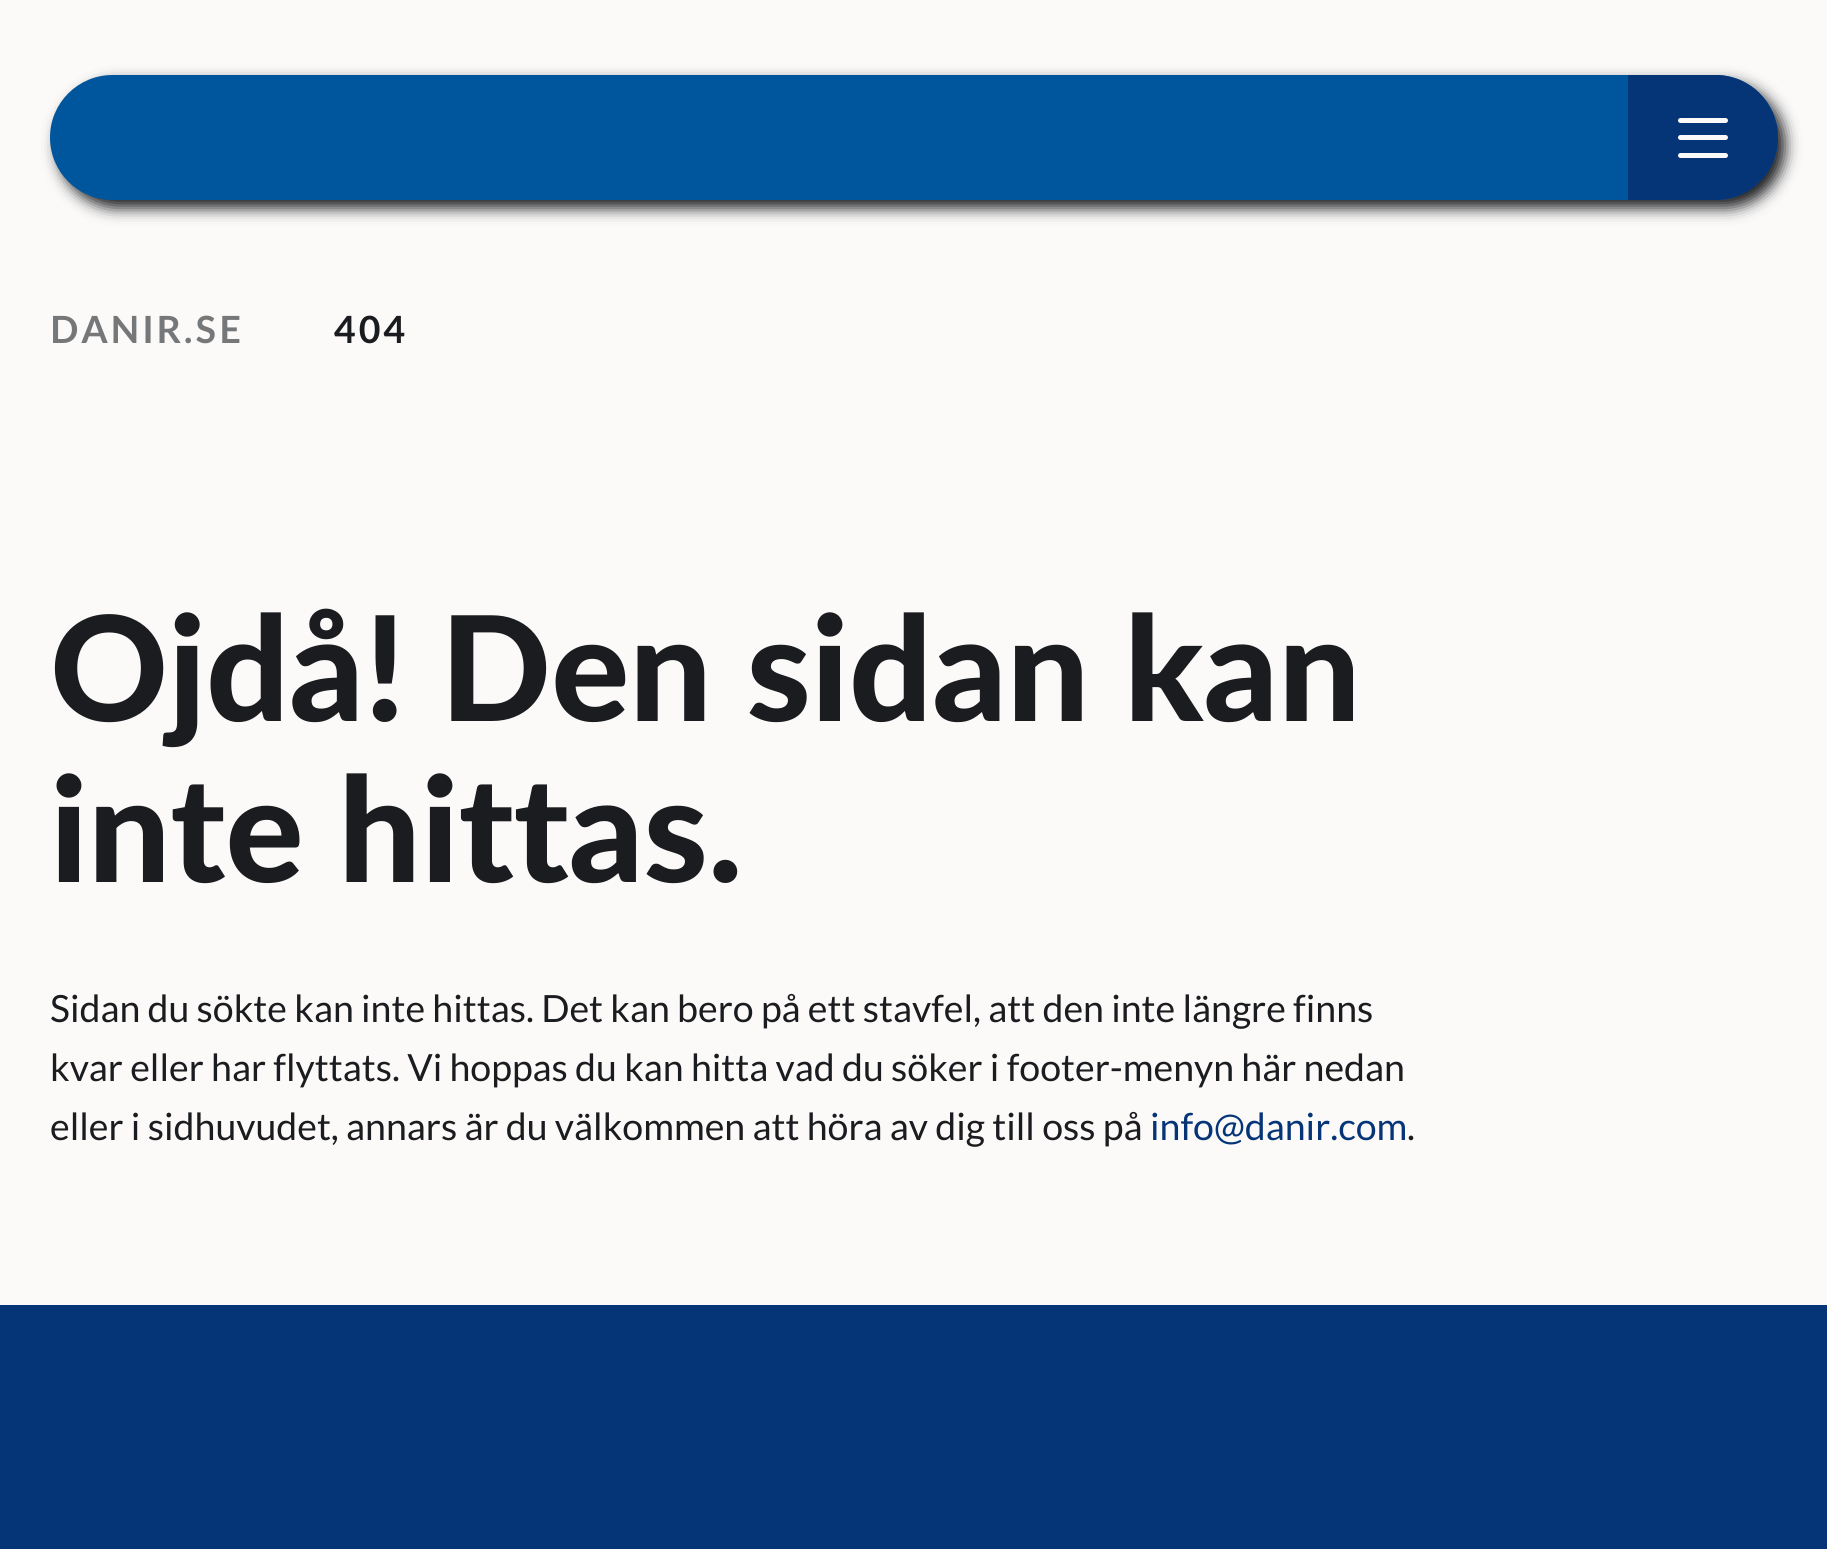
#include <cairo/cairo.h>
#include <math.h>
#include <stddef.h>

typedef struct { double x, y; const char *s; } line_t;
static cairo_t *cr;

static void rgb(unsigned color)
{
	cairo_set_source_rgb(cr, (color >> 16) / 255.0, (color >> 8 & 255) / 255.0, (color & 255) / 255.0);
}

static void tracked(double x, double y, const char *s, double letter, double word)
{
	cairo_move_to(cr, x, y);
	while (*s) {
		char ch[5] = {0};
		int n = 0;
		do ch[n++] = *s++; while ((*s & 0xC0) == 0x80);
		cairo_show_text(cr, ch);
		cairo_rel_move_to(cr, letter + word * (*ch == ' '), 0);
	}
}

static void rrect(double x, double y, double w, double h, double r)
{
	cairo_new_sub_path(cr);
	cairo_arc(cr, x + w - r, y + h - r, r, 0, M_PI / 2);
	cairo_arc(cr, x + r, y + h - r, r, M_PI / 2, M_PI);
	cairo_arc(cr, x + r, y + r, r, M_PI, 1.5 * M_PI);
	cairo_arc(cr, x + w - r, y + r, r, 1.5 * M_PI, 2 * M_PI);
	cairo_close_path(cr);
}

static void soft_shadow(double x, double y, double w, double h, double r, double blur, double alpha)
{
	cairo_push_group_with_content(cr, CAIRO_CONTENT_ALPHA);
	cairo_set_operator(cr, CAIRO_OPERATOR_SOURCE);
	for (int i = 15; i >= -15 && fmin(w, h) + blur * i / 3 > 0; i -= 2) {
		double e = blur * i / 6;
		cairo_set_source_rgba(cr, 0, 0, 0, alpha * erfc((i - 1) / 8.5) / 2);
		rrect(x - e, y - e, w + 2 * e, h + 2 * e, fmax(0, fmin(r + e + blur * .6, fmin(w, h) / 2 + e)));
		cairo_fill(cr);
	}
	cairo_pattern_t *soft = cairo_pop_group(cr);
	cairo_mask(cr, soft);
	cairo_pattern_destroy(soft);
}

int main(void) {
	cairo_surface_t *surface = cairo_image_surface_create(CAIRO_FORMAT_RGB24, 1827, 1549);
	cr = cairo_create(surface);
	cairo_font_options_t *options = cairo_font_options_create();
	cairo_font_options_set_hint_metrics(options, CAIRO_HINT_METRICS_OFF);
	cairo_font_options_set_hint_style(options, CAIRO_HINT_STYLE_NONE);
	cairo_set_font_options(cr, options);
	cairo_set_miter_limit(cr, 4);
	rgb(0xfbfaf9);
	cairo_paint(cr);
	rgb(0x1b1c1f);
	soft_shadow(58, 83, 1727, 125, 62.5, 7.5, 1);
	rgb(0x00569d);
	rrect(50, 75, 1728, 125, 62.5);
	cairo_fill(cr);
	rgb(0x053577);
	cairo_new_path(cr);
	cairo_move_to(cr, 1628, 75);
	cairo_line_to(cr, 1715.5, 75);
	cairo_curve_to(cr, 1750, 75, 1778, 103, 1778, 137.5);
	cairo_curve_to(cr, 1778, 172, 1750, 200, 1715.5, 200);
	cairo_line_to(cr, 1628, 200);
	cairo_close_path(cr);
	cairo_fill(cr);
	rgb(0xfbfaf9);
	rrect(1678, 118, 50, 5, 2.5);
	cairo_fill(cr);
	rrect(1678, 135, 50, 5, 2.5);
	cairo_fill(cr);
	rrect(1678, 153, 50, 5, 2.5);
	cairo_fill(cr);
	rgb(0x053577);
	cairo_rectangle(cr, 0, 1305, 1827, 244);
	cairo_fill(cr);
	cairo_select_font_face(cr, "Lato", CAIRO_FONT_SLANT_NORMAL, CAIRO_FONT_WEIGHT_BOLD);
	cairo_set_font_size(cr, 37.5);
	rgb(0x767779);
	tracked(50, 343, "DANIR.SE", 3, 0);
	rgb(0x1b1c1f);
	tracked(334, 343, "404", 3, 0);
	cairo_select_font_face(cr, "Lato Black", CAIRO_FONT_SLANT_NORMAL, CAIRO_FONT_WEIGHT_NORMAL);
	cairo_set_font_size(cr, 145.75);
	cairo_move_to(cr, 50, 721);
	cairo_show_text(cr, "Ojdå! Den sidan kan");
	cairo_move_to(cr, 50, 882);
	cairo_show_text(cr, "inte hittas.");
	cairo_select_font_face(cr, "Lato", CAIRO_FONT_SLANT_NORMAL, CAIRO_FONT_WEIGHT_NORMAL);
	cairo_set_font_size(cr, 37.5);
	{
		static const line_t items[] = {
			{50, 1022, "Sidan du sökte kan inte hittas. Det kan bero på ett stavfel, att den inte längre finns"},
			{50, 1081, "kvar eller har flyttats. Vi hoppas du kan hitta vad du söker i footer-menyn här nedan"},
			{50, 1140, "eller i sidhuvudet, annars är du välkommen att höra av dig till oss på"},
		};
		for (size_t i = 0; i < sizeof items / sizeof *items; i++) {
			cairo_move_to(cr, items[i].x, items[i].y);
			cairo_show_text(cr, items[i].s);
		}
	}
	rgb(0x053577);
	cairo_move_to(cr, 1150, 1140);
	cairo_show_text(cr, "info@danir.com");
	rgb(0x1b1c1f);
	cairo_move_to(cr, 1407, 1140);
	cairo_show_text(cr, ".");
	cairo_surface_write_to_png(surface, "page.png");
	cairo_font_options_destroy(options);
	cairo_destroy(cr);
	cairo_surface_destroy(surface);
	return 0;
}
